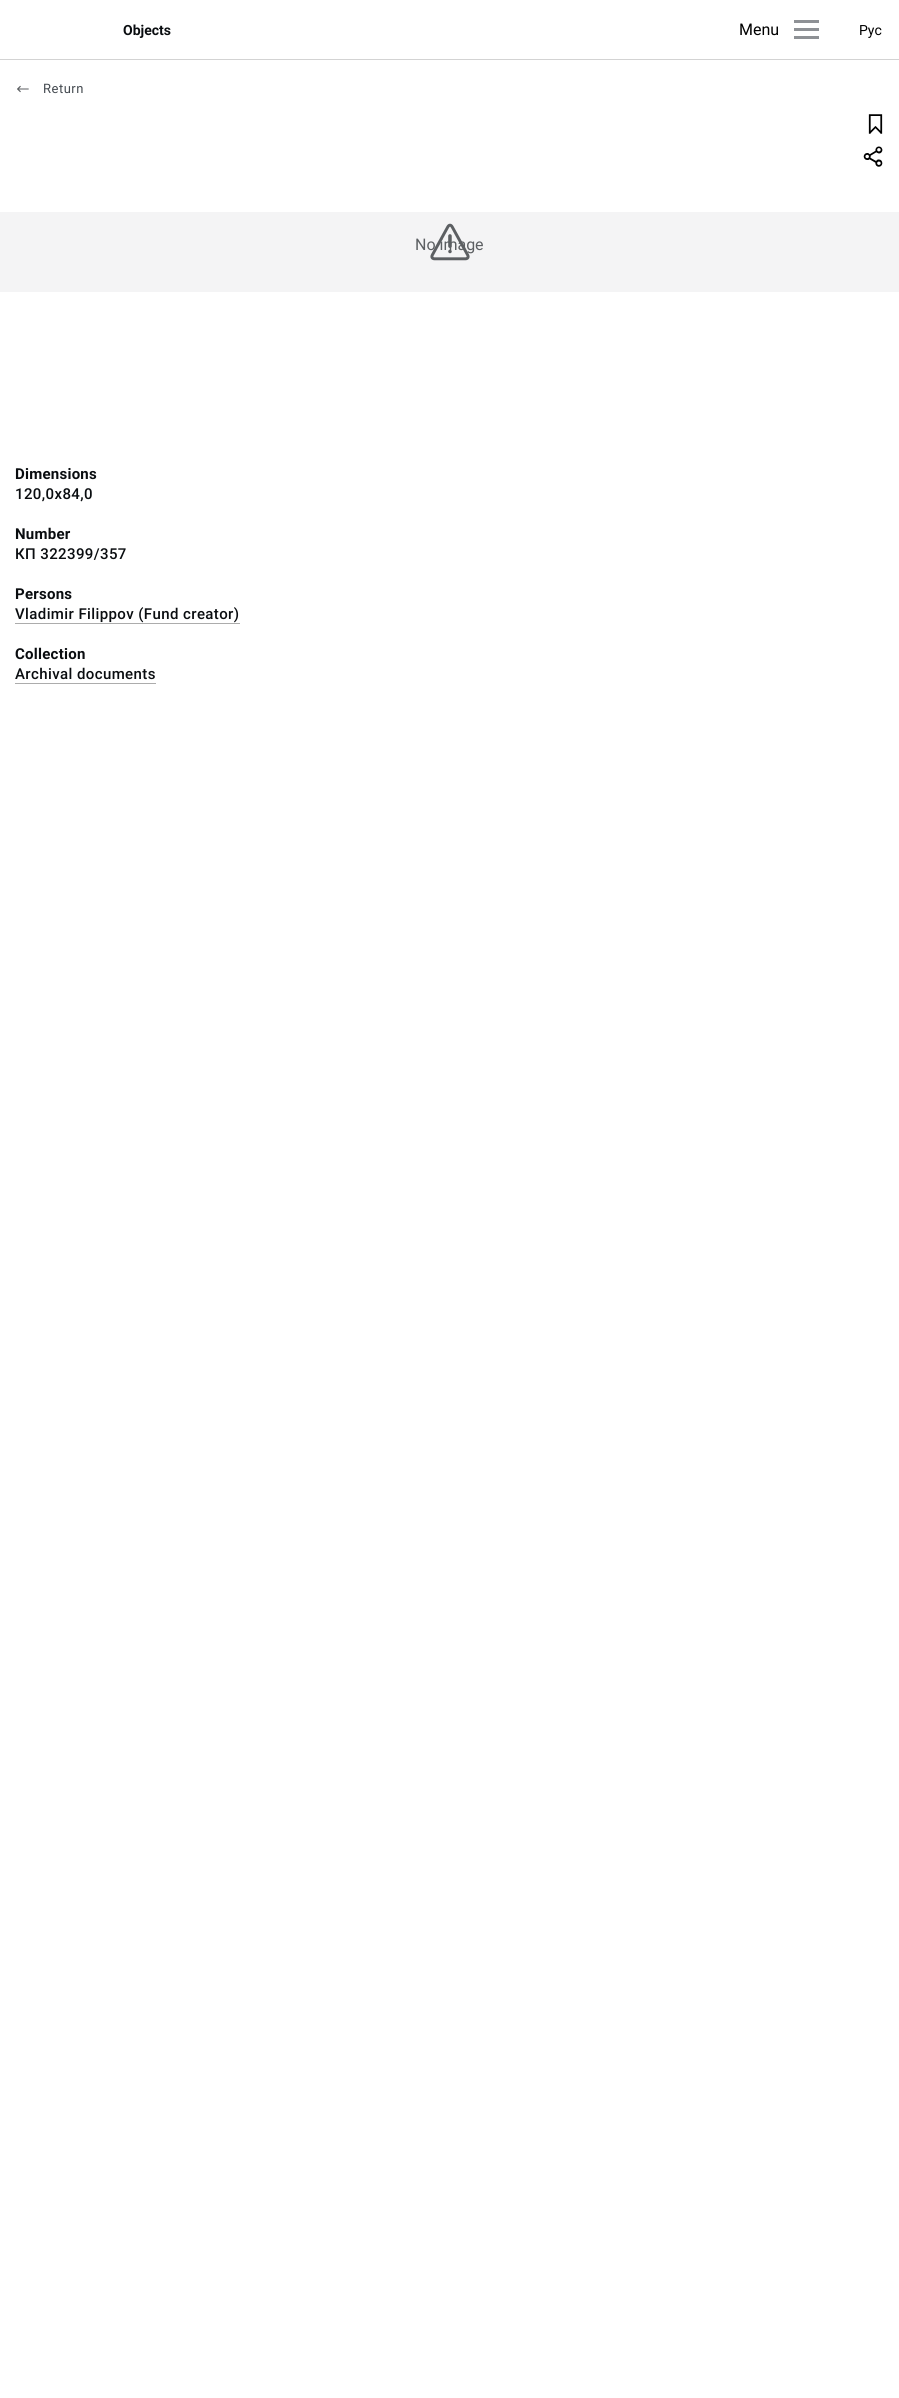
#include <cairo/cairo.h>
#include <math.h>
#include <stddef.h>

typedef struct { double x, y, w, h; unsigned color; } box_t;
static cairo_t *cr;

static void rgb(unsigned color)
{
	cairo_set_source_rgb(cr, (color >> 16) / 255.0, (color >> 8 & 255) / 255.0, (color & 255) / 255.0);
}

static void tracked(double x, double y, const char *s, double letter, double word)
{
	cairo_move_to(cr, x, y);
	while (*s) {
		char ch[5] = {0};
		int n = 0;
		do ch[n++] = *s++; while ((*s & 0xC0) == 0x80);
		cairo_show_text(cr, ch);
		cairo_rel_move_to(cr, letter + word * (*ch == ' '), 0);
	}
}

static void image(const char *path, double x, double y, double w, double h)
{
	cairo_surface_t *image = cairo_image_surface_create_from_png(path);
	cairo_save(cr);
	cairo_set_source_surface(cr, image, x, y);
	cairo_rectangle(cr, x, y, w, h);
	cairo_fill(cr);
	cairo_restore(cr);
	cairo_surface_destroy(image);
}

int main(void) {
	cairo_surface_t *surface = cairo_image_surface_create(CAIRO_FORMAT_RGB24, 899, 2398);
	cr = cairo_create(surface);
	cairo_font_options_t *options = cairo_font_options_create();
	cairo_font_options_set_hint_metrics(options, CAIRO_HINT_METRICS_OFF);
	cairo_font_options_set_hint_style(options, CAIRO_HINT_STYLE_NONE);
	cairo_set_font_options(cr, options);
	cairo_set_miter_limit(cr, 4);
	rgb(0xffffff);
	cairo_paint(cr);
	{
		static const box_t items[] = {
			{0, 59, 899, 1, 0xd3d3d3},
			{794, 20, 25, 3, 0x8e9195},
			{794, 28, 25, 3, 0x8e9195},
			{794, 36, 25, 3, 0x8e9195},
		};
		for (size_t i = 0; i < sizeof items / sizeof *items; i++) {
			rgb(items[i].color);
			cairo_rectangle(cr, items[i].x, items[i].y, items[i].w, items[i].h);
			cairo_fill(cr);
		}
	}
	image("img/1.png", 17, 85, 12, 8);
	rgb(0xf4f4f5);
	cairo_rectangle(cr, 0, 212, 899, 80);
	cairo_fill(cr);
	image("img/3.png", 868, 114, 15, 20);
	image("img/4.png", 863, 146, 20, 21);
	rgb(0xacacac);
	cairo_rectangle(cr, 15, 623, 225, 1);
	cairo_fill(cr);
	cairo_rectangle(cr, 15, 683, 141, 1);
	cairo_fill(cr);
	cairo_select_font_face(cr, "Roboto", CAIRO_FONT_SLANT_NORMAL, CAIRO_FONT_WEIGHT_BOLD);
	cairo_set_font_size(cr, 14);
	rgb(0x0a0d10);
	cairo_move_to(cr, 123, 35);
	cairo_show_text(cr, "Objects");
	cairo_select_font_face(cr, "Roboto", CAIRO_FONT_SLANT_NORMAL, CAIRO_FONT_WEIGHT_NORMAL);
	cairo_set_font_size(cr, 16);
	rgb(0x000000);
	cairo_move_to(cr, 739, 35);
	cairo_show_text(cr, "Menu");
	cairo_set_font_size(cr, 14);
	cairo_move_to(cr, 859, 35);
	cairo_show_text(cr, "Рус");
	cairo_set_font_size(cr, 13);
	rgb(0x444a50);
	tracked(43, 93, "Return", 0.5, 0);
	cairo_set_font_size(cr, 16);
	rgb(0x5c5f62);
	cairo_move_to(cr, 415, 250);
	cairo_show_text(cr, "No image");
	image("img/2.png", 430, 223, 40, 38);
	cairo_select_font_face(cr, "Roboto", CAIRO_FONT_SLANT_NORMAL, CAIRO_FONT_WEIGHT_BOLD);
	cairo_set_font_size(cr, 15);
	rgb(0x0a0d10);
	tracked(15, 479, "Dimensions", 0.25, 0);
	cairo_select_font_face(cr, "Roboto Medium", CAIRO_FONT_SLANT_NORMAL, CAIRO_FONT_WEIGHT_NORMAL);
	tracked(15, 499, "120,0х84,0", 0.4, 0);
	cairo_select_font_face(cr, "Roboto", CAIRO_FONT_SLANT_NORMAL, CAIRO_FONT_WEIGHT_BOLD);
	tracked(15, 539, "Number", 0.25, 0);
	cairo_select_font_face(cr, "Roboto Medium", CAIRO_FONT_SLANT_NORMAL, CAIRO_FONT_WEIGHT_NORMAL);
	tracked(15, 559, "КП 322399/357", 0.4, 0);
	cairo_select_font_face(cr, "Roboto", CAIRO_FONT_SLANT_NORMAL, CAIRO_FONT_WEIGHT_BOLD);
	tracked(15, 599, "Persons", 0.25, 0);
	cairo_select_font_face(cr, "Roboto Medium", CAIRO_FONT_SLANT_NORMAL, CAIRO_FONT_WEIGHT_NORMAL);
	tracked(15, 619, "Vladimir Filippov (Fund creator)", 0.4, 0);
	cairo_select_font_face(cr, "Roboto", CAIRO_FONT_SLANT_NORMAL, CAIRO_FONT_WEIGHT_BOLD);
	tracked(15, 659, "Collection", 0.25, 0);
	cairo_select_font_face(cr, "Roboto Medium", CAIRO_FONT_SLANT_NORMAL, CAIRO_FONT_WEIGHT_NORMAL);
	tracked(15, 679, "Archival documents", 0.4, 0);
	cairo_surface_write_to_png(surface, "page.png");
	cairo_font_options_destroy(options);
	cairo_destroy(cr);
	cairo_surface_destroy(surface);
	return 0;
}
